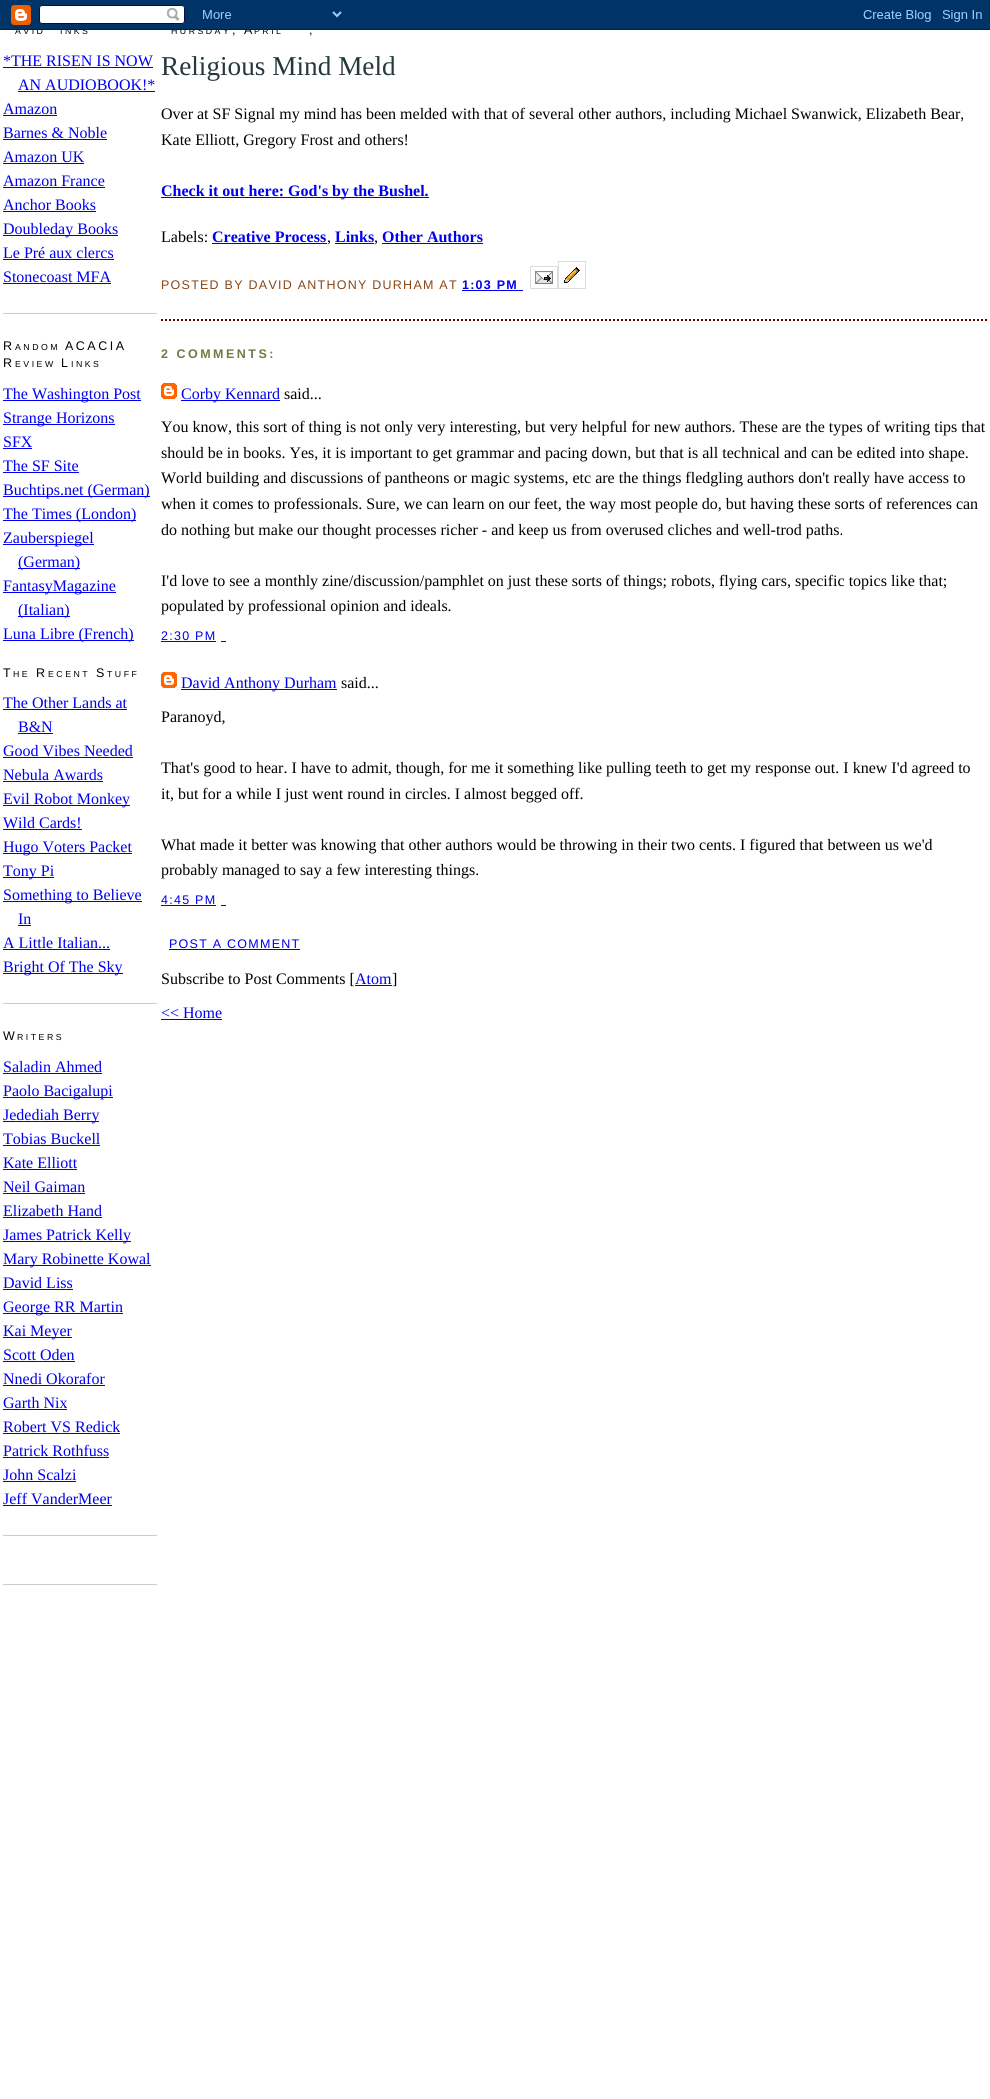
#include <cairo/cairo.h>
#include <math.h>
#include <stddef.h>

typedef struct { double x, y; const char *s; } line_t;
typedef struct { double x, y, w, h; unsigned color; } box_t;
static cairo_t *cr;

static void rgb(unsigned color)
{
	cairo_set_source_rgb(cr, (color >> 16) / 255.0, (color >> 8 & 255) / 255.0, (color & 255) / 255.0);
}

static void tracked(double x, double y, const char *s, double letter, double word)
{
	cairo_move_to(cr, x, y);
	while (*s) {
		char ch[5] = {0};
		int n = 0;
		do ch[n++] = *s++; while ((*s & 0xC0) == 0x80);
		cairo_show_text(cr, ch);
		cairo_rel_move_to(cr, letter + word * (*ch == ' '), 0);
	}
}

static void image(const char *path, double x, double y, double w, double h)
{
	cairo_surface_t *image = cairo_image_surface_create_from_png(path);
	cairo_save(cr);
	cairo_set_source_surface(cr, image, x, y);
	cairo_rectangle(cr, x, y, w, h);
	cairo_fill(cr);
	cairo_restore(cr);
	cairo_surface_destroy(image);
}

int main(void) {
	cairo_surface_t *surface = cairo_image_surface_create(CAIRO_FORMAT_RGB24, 990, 2099);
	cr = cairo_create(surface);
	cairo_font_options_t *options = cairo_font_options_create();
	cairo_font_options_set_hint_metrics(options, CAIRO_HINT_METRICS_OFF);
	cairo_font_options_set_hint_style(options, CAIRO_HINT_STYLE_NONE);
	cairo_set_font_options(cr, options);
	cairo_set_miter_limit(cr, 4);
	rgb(0xffffff);
	cairo_paint(cr);
	{
		static const box_t items[] = {
			{3, 313, 154, 1, 0xcccccc},
			{3, 67, 150, 1, 0x0000ee},
			{18, 91, 137, 1, 0x0000ee},
			{3, 115, 54, 1, 0x0000ee},
			{3, 139, 104, 1, 0x0000ee},
			{3, 163, 81, 1, 0x0000ee},
			{3, 187, 102, 1, 0x0000ee},
			{3, 211, 93, 1, 0x0000ee},
			{3, 235, 115, 1, 0x0000ee},
			{3, 259, 111, 1, 0x0000ee},
			{3, 283, 108, 1, 0x0000ee},
			{3, 1584, 154, 1, 0xcccccc},
			{3, 400, 138, 1, 0x0000ee},
			{3, 424, 112, 1, 0x0000ee},
			{3, 448, 29, 1, 0x0000ee},
			{3, 472, 76, 1, 0x0000ee},
			{3, 496, 147, 1, 0x0000ee},
			{3, 520, 133, 1, 0x0000ee},
			{3, 544, 91, 1, 0x0000ee},
			{18, 568, 62, 1, 0x0000ee},
			{3, 592, 113, 1, 0x0000ee},
			{18, 616, 52, 1, 0x0000ee},
			{3, 640, 131, 1, 0x0000ee},
			{3, 1003, 154, 1, 0xcccccc},
			{3, 709, 124, 1, 0x0000ee},
			{18, 733, 35, 1, 0x0000ee},
			{3, 757, 130, 1, 0x0000ee},
			{3, 781, 100, 1, 0x0000ee},
			{3, 805, 127, 1, 0x0000ee},
			{3, 829, 79, 1, 0x0000ee},
			{3, 853, 129, 1, 0x0000ee},
			{3, 877, 51, 1, 0x0000ee},
			{3, 901, 139, 1, 0x0000ee},
			{18, 925, 13, 1, 0x0000ee},
			{3, 949, 107, 1, 0x0000ee},
			{3, 973, 120, 1, 0x0000ee},
			{3, 1535, 154, 1, 0xcccccc},
			{3, 1073, 99, 1, 0x0000ee},
			{3, 1097, 110, 1, 0x0000ee},
			{3, 1121, 96, 1, 0x0000ee},
			{3, 1145, 97, 1, 0x0000ee},
			{3, 1169, 74, 1, 0x0000ee},
			{3, 1193, 82, 1, 0x0000ee},
			{3, 1217, 99, 1, 0x0000ee},
			{3, 1241, 128, 1, 0x0000ee},
			{3, 1265, 148, 1, 0x0000ee},
			{3, 1289, 70, 1, 0x0000ee},
			{3, 1313, 120, 1, 0x0000ee},
			{3, 1337, 69, 1, 0x0000ee},
			{3, 1361, 72, 1, 0x0000ee},
			{3, 1385, 102, 1, 0x0000ee},
			{3, 1409, 64, 1, 0x0000ee},
			{3, 1433, 117, 1, 0x0000ee},
			{3, 1457, 106, 1, 0x0000ee},
			{3, 1481, 73, 1, 0x0000ee},
			{3, 1505, 109, 1, 0x0000ee},
		};
		for (size_t i = 0; i < sizeof items / sizeof *items; i++) {
			rgb(items[i].color);
			cairo_rectangle(cr, items[i].x, items[i].y, items[i].w, items[i].h);
			cairo_fill(cr);
		}
	}
	cairo_new_path(cr);
	cairo_move_to(cr, 161, 320);
	cairo_line_to(cr, 987, 320);
	rgb(0x680000);
	cairo_set_dash(cr, (double[]){2, 2}, 2, 0);
	cairo_stroke(cr);
	{
		static const box_t items[] = {
			{161, 197, 268, 1, 0x0000ee},
			{212, 243, 115, 1, 0x0000ee},
			{335, 243, 39, 1, 0x0000ee},
			{382, 243, 101, 1, 0x0000ee},
		};
		for (size_t i = 0; i < sizeof items / sizeof *items; i++) {
			rgb(items[i].color);
			cairo_rectangle(cr, items[i].x, items[i].y, items[i].w, items[i].h);
			cairo_fill(cr);
		}
	}
	cairo_rectangle(cr, 530.5, 266.5, 27, 22);
	rgb(0xdddddd);
	cairo_set_line_width(cr, 1);
	cairo_set_dash(cr, NULL, 0, 0);
	cairo_stroke(cr);
	cairo_rectangle(cr, 558.5, 261.5, 27, 27);
	cairo_stroke(cr);
	image("img/2.png", 535, 271, 18, 13);
	image("img/3.png", 564, 267, 16, 16);
	rgb(0x0000ee);
	cairo_rectangle(cr, 462, 290, 61, 1);
	cairo_fill(cr);
	image("img/4.png", 161, 383, 16, 16);
	{
		static const box_t items[] = {
			{181, 400, 99, 1, 0x0000ee},
			{161, 641, 55, 1, 0x0000ee},
			{221, 641, 5, 1, 0x0000ee},
		};
		for (size_t i = 0; i < sizeof items / sizeof *items; i++) {
			rgb(items[i].color);
			cairo_rectangle(cr, items[i].x, items[i].y, items[i].w, items[i].h);
			cairo_fill(cr);
		}
	}
	image("img/4.png", 161, 672, 16, 16);
	{
		static const box_t items[] = {
			{181, 689, 156, 1, 0x0000ee},
			{161, 905, 55, 1, 0x0000ee},
			{221, 905, 5, 1, 0x0000ee},
			{169, 949, 131, 1, 0x0000ee},
			{355, 985, 37, 1, 0x0000ee},
			{161, 1019, 61, 1, 0x0000ee},
		};
		for (size_t i = 0; i < sizeof items / sizeof *items; i++) {
			rgb(items[i].color);
			cairo_rectangle(cr, items[i].x, items[i].y, items[i].w, items[i].h);
			cairo_fill(cr);
		}
	}
	cairo_select_font_face(cr, "Liberation Sans", CAIRO_FONT_SLANT_NORMAL, CAIRO_FONT_WEIGHT_NORMAL);
	cairo_set_font_size(cr, 8.75);
	rgb(0x000000);
	tracked(15, 34, "AVID", 2.5, 0);
	tracked(60, 34, "INKS", 2.5, 0);
	cairo_select_font_face(cr, "Liberation Serif", CAIRO_FONT_SLANT_NORMAL, CAIRO_FONT_WEIGHT_NORMAL);
	cairo_set_font_size(cr, 16);
	rgb(0x0000ee);
	{
		static const line_t items[] = {
			{3, 66, "*THE RISEN IS NOW"},
			{18, 90, "AN AUDIOBOOK!*"},
			{3, 114, "Amazon"},
			{3, 138, "Barnes & Noble"},
			{3, 162, "Amazon UK"},
			{3, 186, "Amazon France"},
			{3, 210, "Anchor Books"},
			{3, 234, "Doubleday Books"},
			{3, 258, "Le Pré aux clercs"},
			{3, 282, "Stonecoast MFA"},
		};
		for (size_t i = 0; i < sizeof items / sizeof *items; i++) {
			cairo_move_to(cr, items[i].x, items[i].y);
			cairo_show_text(cr, items[i].s);
		}
	}
	cairo_select_font_face(cr, "Liberation Sans", CAIRO_FONT_SLANT_NORMAL, CAIRO_FONT_WEIGHT_NORMAL);
	cairo_set_font_size(cr, 12.5);
	rgb(0x000000);
	tracked(3, 350, "R", 2.5, 0);
	cairo_set_font_size(cr, 8.75);
	tracked(15, 350, "ANDOM", 2.5, 0);
	cairo_set_font_size(cr, 12.5);
	tracked(65, 350, "ACACIA", 2.5, 0);
	tracked(3, 367, "R", 2.5, 0);
	cairo_set_font_size(cr, 8.75);
	tracked(15, 367, "EVIEW", 2.5, 0);
	cairo_set_font_size(cr, 12.5);
	tracked(61, 367, "L", 2.5, 0);
	cairo_set_font_size(cr, 8.75);
	tracked(71, 367, "INKS", 2.5, 0);
	cairo_select_font_face(cr, "Liberation Serif", CAIRO_FONT_SLANT_NORMAL, CAIRO_FONT_WEIGHT_NORMAL);
	cairo_set_font_size(cr, 16);
	rgb(0x0000ee);
	{
		static const line_t items[] = {
			{3, 399, "The Washington Post"},
			{3, 423, "Strange Horizons"},
			{3, 447, "SFX"},
			{3, 471, "The SF Site"},
			{3, 495, "Buchtips.net (German)"},
			{3, 519, "The Times (London)"},
			{3, 543, "Zauberspiegel"},
			{18, 567, "(German)"},
			{3, 591, "FantasyMagazine"},
			{18, 615, "(Italian)"},
			{3, 639, "Luna Libre (French)"},
		};
		for (size_t i = 0; i < sizeof items / sizeof *items; i++) {
			cairo_move_to(cr, items[i].x, items[i].y);
			cairo_show_text(cr, items[i].s);
		}
	}
	cairo_select_font_face(cr, "Liberation Sans", CAIRO_FONT_SLANT_NORMAL, CAIRO_FONT_WEIGHT_NORMAL);
	cairo_set_font_size(cr, 12.5);
	rgb(0x000000);
	tracked(3, 677, "T", 2.5, 0);
	cairo_set_font_size(cr, 8.75);
	tracked(13, 677, "HE", 2.5, 0);
	cairo_set_font_size(cr, 12.5);
	tracked(36, 677, "R", 2.5, 0);
	cairo_set_font_size(cr, 8.75);
	tracked(48, 677, "ECENT", 2.5, 0);
	cairo_set_font_size(cr, 12.5);
	tracked(96, 677, "S", 2.5, 0);
	cairo_set_font_size(cr, 8.75);
	tracked(107, 677, "TUFF", 2.5, 0);
	cairo_select_font_face(cr, "Liberation Serif", CAIRO_FONT_SLANT_NORMAL, CAIRO_FONT_WEIGHT_NORMAL);
	cairo_set_font_size(cr, 16);
	rgb(0x0000ee);
	{
		static const line_t items[] = {
			{3, 708, "The Other Lands at"},
			{18, 732, "B&N"},
			{3, 756, "Good Vibes Needed"},
			{3, 780, "Nebula Awards"},
			{3, 804, "Evil Robot Monkey"},
			{3, 828, "Wild Cards!"},
			{3, 852, "Hugo Voters Packet"},
			{3, 876, "Tony Pi"},
			{3, 900, "Something to Believe"},
			{18, 924, "In"},
			{3, 948, "A Little Italian..."},
			{3, 972, "Bright Of The Sky"},
		};
		for (size_t i = 0; i < sizeof items / sizeof *items; i++) {
			cairo_move_to(cr, items[i].x, items[i].y);
			cairo_show_text(cr, items[i].s);
		}
	}
	cairo_select_font_face(cr, "Liberation Sans", CAIRO_FONT_SLANT_NORMAL, CAIRO_FONT_WEIGHT_NORMAL);
	cairo_set_font_size(cr, 12.5);
	rgb(0x000000);
	tracked(3, 1040, "W", 2.5, 0);
	cairo_set_font_size(cr, 8.75);
	tracked(17, 1040, "RITERS", 2.5, 0);
	cairo_select_font_face(cr, "Liberation Serif", CAIRO_FONT_SLANT_NORMAL, CAIRO_FONT_WEIGHT_NORMAL);
	cairo_set_font_size(cr, 16);
	rgb(0x0000ee);
	{
		static const line_t items[] = {
			{3, 1072, "Saladin Ahmed"},
			{3, 1096, "Paolo Bacigalupi"},
			{3, 1120, "Jedediah Berry"},
			{3, 1144, "Tobias Buckell"},
			{3, 1168, "Kate Elliott"},
			{3, 1192, "Neil Gaiman"},
			{3, 1216, "Elizabeth Hand"},
			{3, 1240, "James Patrick Kelly"},
			{3, 1264, "Mary Robinette Kowal"},
			{3, 1288, "David Liss"},
			{3, 1312, "George RR Martin"},
			{3, 1336, "Kai Meyer"},
			{3, 1360, "Scott Oden"},
			{3, 1384, "Nnedi Okorafor"},
			{3, 1408, "Garth Nix"},
			{3, 1432, "Robert VS Redick"},
			{3, 1456, "Patrick Rothfuss"},
			{3, 1480, "John Scalzi"},
			{3, 1504, "Jeff VanderMeer"},
		};
		for (size_t i = 0; i < sizeof items / sizeof *items; i++) {
			cairo_move_to(cr, items[i].x, items[i].y);
			cairo_show_text(cr, items[i].s);
		}
	}
	cairo_select_font_face(cr, "Liberation Sans", CAIRO_FONT_SLANT_NORMAL, CAIRO_FONT_WEIGHT_NORMAL);
	cairo_set_font_size(cr, 8.75);
	rgb(0x000000);
	tracked(171, 34, "HURSDAY", 2.5, 0);
	cairo_set_font_size(cr, 12.5);
	tracked(232, 34, ", A", 2.5, 0);
	cairo_set_font_size(cr, 8.75);
	tracked(254, 34, "PRIL", 2.5, 0);
	image("img/1.png", 0, 0, 990, 30);
	cairo_set_font_size(cr, 12.5);
	tracked(309, 34, ",", 2.5, 0);
	cairo_select_font_face(cr, "Liberation Serif", CAIRO_FONT_SLANT_NORMAL, CAIRO_FONT_WEIGHT_NORMAL);
	cairo_set_font_size(cr, 27.25);
	rgb(0x25383c);
	cairo_move_to(cr, 161, 75);
	cairo_show_text(cr, "Religious Mind Meld");
	cairo_set_font_size(cr, 16);
	rgb(0x000000);
	cairo_move_to(cr, 161, 119);
	cairo_show_text(cr, "Over at SF Signal my mind has been melded with that of several other authors, including Michael Swanwick, Elizabeth Bear,");
	cairo_move_to(cr, 161, 145);
	cairo_show_text(cr, "Kate Elliott, Gregory Frost and others!");
	cairo_select_font_face(cr, "Liberation Serif", CAIRO_FONT_SLANT_NORMAL, CAIRO_FONT_WEIGHT_BOLD);
	rgb(0x0000ee);
	cairo_move_to(cr, 161, 196);
	cairo_show_text(cr, "Check it out here: God's by the Bushel.");
	cairo_select_font_face(cr, "Liberation Serif", CAIRO_FONT_SLANT_NORMAL, CAIRO_FONT_WEIGHT_NORMAL);
	rgb(0x000000);
	cairo_move_to(cr, 161, 242);
	cairo_show_text(cr, "Labels:");
	cairo_select_font_face(cr, "Liberation Serif", CAIRO_FONT_SLANT_NORMAL, CAIRO_FONT_WEIGHT_BOLD);
	rgb(0x0000ee);
	cairo_move_to(cr, 212, 242);
	cairo_show_text(cr, "Creative Process");
	cairo_select_font_face(cr, "Liberation Serif", CAIRO_FONT_SLANT_NORMAL, CAIRO_FONT_WEIGHT_NORMAL);
	rgb(0x000000);
	cairo_move_to(cr, 327, 242);
	cairo_show_text(cr, ",");
	cairo_select_font_face(cr, "Liberation Serif", CAIRO_FONT_SLANT_NORMAL, CAIRO_FONT_WEIGHT_BOLD);
	rgb(0x0000ee);
	cairo_move_to(cr, 335, 242);
	cairo_show_text(cr, "Links");
	cairo_select_font_face(cr, "Liberation Serif", CAIRO_FONT_SLANT_NORMAL, CAIRO_FONT_WEIGHT_NORMAL);
	rgb(0x000000);
	cairo_move_to(cr, 374, 242);
	cairo_show_text(cr, ",");
	cairo_select_font_face(cr, "Liberation Serif", CAIRO_FONT_SLANT_NORMAL, CAIRO_FONT_WEIGHT_BOLD);
	rgb(0x0000ee);
	cairo_move_to(cr, 382, 242);
	cairo_show_text(cr, "Other Authors");
	cairo_select_font_face(cr, "Liberation Sans", CAIRO_FONT_SLANT_NORMAL, CAIRO_FONT_WEIGHT_NORMAL);
	cairo_set_font_size(cr, 12.5);
	rgb(0x8b4513);
	tracked(161, 289, "POSTED BY DAVID ANTHONY DURHAM AT", 1.25, 0);
	cairo_select_font_face(cr, "Liberation Sans", CAIRO_FONT_SLANT_NORMAL, CAIRO_FONT_WEIGHT_BOLD);
	rgb(0x0000ee);
	tracked(462, 289, "1:03 PM", 1.25, 0);
	rgb(0x777744);
	tracked(161, 358, "2 COMMENTS:", 2.5, 0);
	cairo_select_font_face(cr, "Liberation Serif", CAIRO_FONT_SLANT_NORMAL, CAIRO_FONT_WEIGHT_NORMAL);
	cairo_set_font_size(cr, 16);
	rgb(0x0000ee);
	cairo_move_to(cr, 181, 399);
	cairo_show_text(cr, "Corby Kennard");
	rgb(0x000000);
	{
		static const line_t items[] = {
			{284, 399, "said..."},
			{161, 432, "You know, this sort of thing is not only very interesting, but very helpful for new authors. These are the types of writing tips that"},
			{161, 458, "should be in books. Yes, it is important to get grammar and pacing down, but that is all technical and can be edited into shape."},
			{161, 483, "World building and discussions of pantheons or magic systems, etc are the things fledgling authors don't really have access to"},
			{161, 509, "when it comes to professionals. Sure, we can learn on our feet, the way most people do, but having these sorts of references can"},
			{161, 535, "do nothing but make our thought processes richer - and keep us from overused cliches and well-trod paths."},
			{161, 586, "I'd love to see a monthly zine/discussion/pamphlet on just these sorts of things; robots, flying cars, specific topics like that;"},
			{161, 611, "populated by professional opinion and ideals."},
		};
		for (size_t i = 0; i < sizeof items / sizeof *items; i++) {
			cairo_move_to(cr, items[i].x, items[i].y);
			cairo_show_text(cr, items[i].s);
		}
	}
	cairo_select_font_face(cr, "Liberation Sans", CAIRO_FONT_SLANT_NORMAL, CAIRO_FONT_WEIGHT_NORMAL);
	cairo_set_font_size(cr, 12.5);
	rgb(0x0000ee);
	tracked(161, 640, "2:30 PM", 1.25, 0);
	cairo_select_font_face(cr, "Liberation Serif", CAIRO_FONT_SLANT_NORMAL, CAIRO_FONT_WEIGHT_NORMAL);
	cairo_set_font_size(cr, 16);
	cairo_move_to(cr, 181, 688);
	cairo_show_text(cr, "David Anthony Durham");
	rgb(0x000000);
	{
		static const line_t items[] = {
			{341, 688, "said..."},
			{161, 722, "Paranoyd,"},
			{161, 773, "That's good to hear. I have to admit, though, for me it something like pulling teeth to get my response out. I knew I'd agreed to"},
			{161, 799, "it, but for a while I just went round in circles. I almost begged off."},
			{161, 850, "What made it better was knowing that other authors would be throwing in their two cents. I figured that between us we'd"},
			{161, 875, "probably managed to say a few interesting things."},
		};
		for (size_t i = 0; i < sizeof items / sizeof *items; i++) {
			cairo_move_to(cr, items[i].x, items[i].y);
			cairo_show_text(cr, items[i].s);
		}
	}
	cairo_select_font_face(cr, "Liberation Sans", CAIRO_FONT_SLANT_NORMAL, CAIRO_FONT_WEIGHT_NORMAL);
	cairo_set_font_size(cr, 12.5);
	rgb(0x0000ee);
	tracked(161, 904, "4:45 PM", 1.25, 0);
	tracked(169, 948, "POST A COMMENT", 1.25, 0);
	cairo_select_font_face(cr, "Liberation Serif", CAIRO_FONT_SLANT_NORMAL, CAIRO_FONT_WEIGHT_NORMAL);
	cairo_set_font_size(cr, 16);
	rgb(0x000000);
	cairo_move_to(cr, 161, 984);
	cairo_show_text(cr, "Subscribe to Post Comments [");
	rgb(0x0000ee);
	cairo_move_to(cr, 355, 984);
	cairo_show_text(cr, "Atom");
	rgb(0x000000);
	cairo_move_to(cr, 392, 984);
	cairo_show_text(cr, "]");
	rgb(0x0000ee);
	cairo_move_to(cr, 161, 1018);
	cairo_show_text(cr, "<< Home");
	cairo_surface_write_to_png(surface, "page.png");
	cairo_font_options_destroy(options);
	cairo_destroy(cr);
	cairo_surface_destroy(surface);
	return 0;
}
